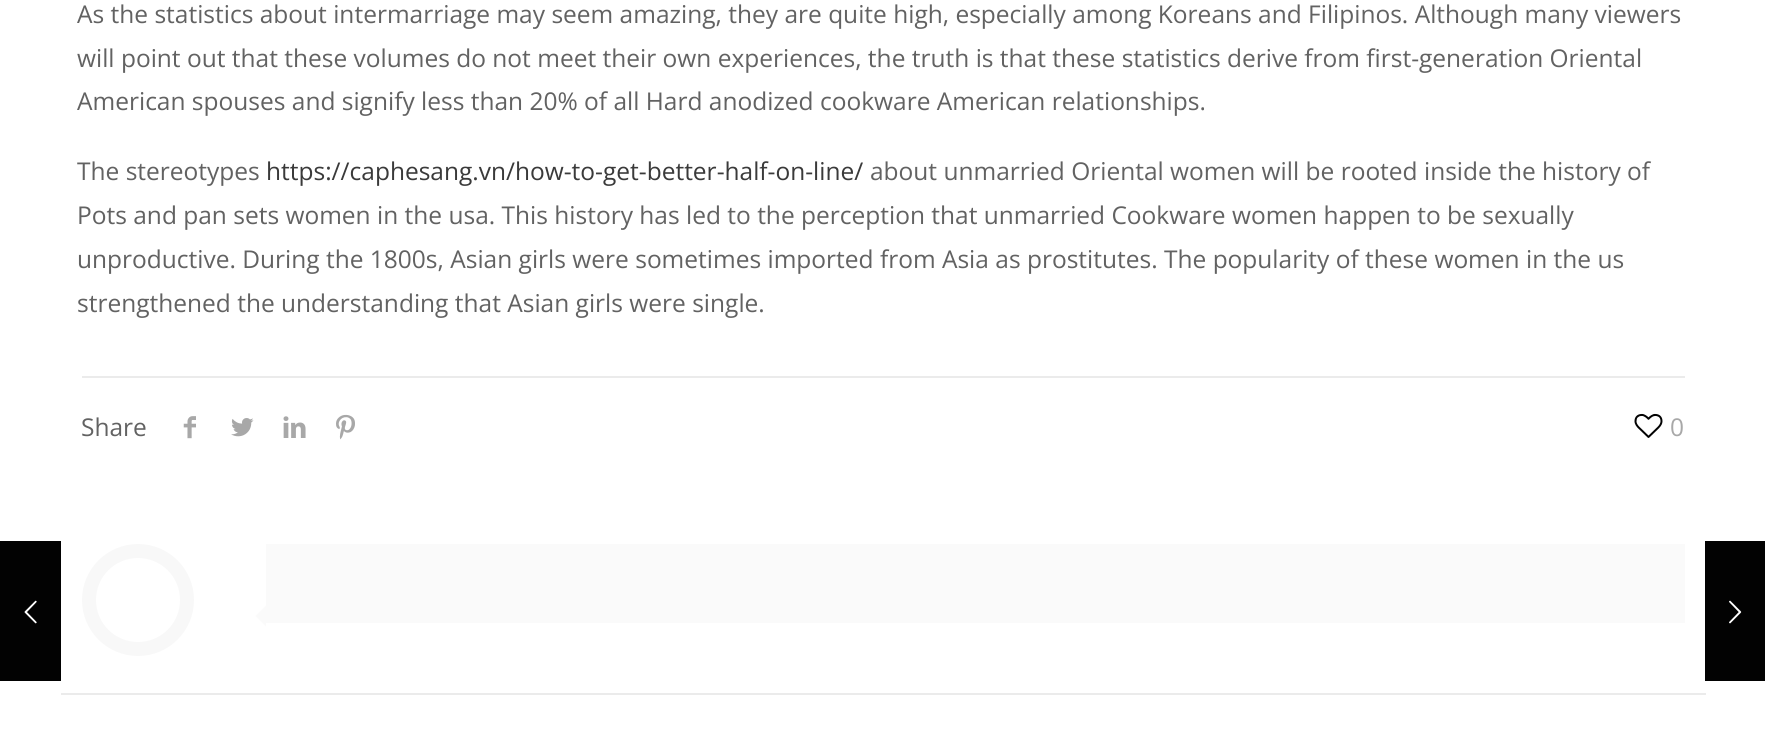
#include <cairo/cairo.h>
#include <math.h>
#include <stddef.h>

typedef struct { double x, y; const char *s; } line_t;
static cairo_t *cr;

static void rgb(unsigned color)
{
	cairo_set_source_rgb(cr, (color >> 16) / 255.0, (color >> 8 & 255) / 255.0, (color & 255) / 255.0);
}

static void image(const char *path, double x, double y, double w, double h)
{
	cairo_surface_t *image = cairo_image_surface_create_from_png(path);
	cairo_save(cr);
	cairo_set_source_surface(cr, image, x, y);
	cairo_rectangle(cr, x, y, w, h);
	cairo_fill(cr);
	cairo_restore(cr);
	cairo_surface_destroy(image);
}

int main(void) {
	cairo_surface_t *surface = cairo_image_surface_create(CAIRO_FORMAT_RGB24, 1765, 750);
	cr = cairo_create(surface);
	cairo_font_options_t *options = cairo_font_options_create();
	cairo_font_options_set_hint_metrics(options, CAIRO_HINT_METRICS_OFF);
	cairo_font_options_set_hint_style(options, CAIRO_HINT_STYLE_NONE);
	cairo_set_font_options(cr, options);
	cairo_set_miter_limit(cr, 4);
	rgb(0xffffff);
	cairo_paint(cr);
	rgb(0xebebeb);
	cairo_rectangle(cr, 82, 376, 1603, 2);
	cairo_fill(cr);
	image("img/1.png", 183, 416, 13, 23);
	image("img/2.png", 231, 418, 23, 19);
	image("img/3.png", 283, 416, 23, 22);
	image("img/4.png", 336, 414, 19, 26);
	image("img/5.png", 1634, 413, 29, 25);
	cairo_arc(cr, 138, 600, 49, 0, 2 * M_PI);
	rgb(0xf8f8f8);
	cairo_set_line_width(cr, 14);
	cairo_stroke(cr);
	rgb(0xfafafa);
	cairo_rectangle(cr, 266, 544, 1419, 79);
	cairo_fill(cr);
	cairo_new_path(cr);
	cairo_move_to(cr, 266, 605.5);
	cairo_line_to(cr, 266, 626.5);
	cairo_line_to(cr, 255.5, 616);
	cairo_close_path(cr);
	cairo_fill(cr);
	rgb(0xebebeb);
	cairo_rectangle(cr, 61, 693, 1645, 2);
	cairo_fill(cr);
	rgb(0x020202);
	cairo_rectangle(cr, 0, 541, 61, 140);
	cairo_fill(cr);
	image("img/6.png", 24, 600, 13, 24);
	cairo_rectangle(cr, 1705, 541, 60, 140);
	cairo_fill(cr);
	image("img/7.png", 1729, 600, 13, 24);
	cairo_select_font_face(cr, "Open Sans", CAIRO_FONT_SLANT_NORMAL, CAIRO_FONT_WEIGHT_NORMAL);
	cairo_set_font_size(cr, 24.5);
	rgb(0x626262);
	{
		static const line_t items[] = {
			{77, 23, "As the statistics about intermarriage may seem amazing, they are quite high, especially among Koreans and Filipinos. Although many viewers"},
			{77, 67, "will point out that these volumes do not meet their own experiences, the truth is that these statistics derive from first-generation Oriental"},
			{77, 110, "American spouses and signify less than 20% of all Hard anodized cookware American relationships."},
			{77, 180, "The stereotypes"},
		};
		for (size_t i = 0; i < sizeof items / sizeof *items; i++) {
			cairo_move_to(cr, items[i].x, items[i].y);
			cairo_show_text(cr, items[i].s);
		}
	}
	rgb(0x3a3a3a);
	cairo_move_to(cr, 266, 180);
	cairo_show_text(cr, "https://caphesang.vn/how-to-get-better-half-on-line/");
	rgb(0x626262);
	{
		static const line_t items[] = {
			{870, 180, "about unmarried Oriental women will be rooted inside the history of"},
			{77, 224, "Pots and pan sets women in the usa. This history has led to the perception that unmarried Cookware women happen to be sexually"},
			{77, 268, "unproductive. During the 1800s, Asian girls were sometimes imported from Asia as prostitutes. The popularity of these women in the us"},
			{77, 312, "strengthened the understanding that Asian girls were single."},
			{81, 436, "Share"},
		};
		for (size_t i = 0; i < sizeof items / sizeof *items; i++) {
			cairo_move_to(cr, items[i].x, items[i].y);
			cairo_show_text(cr, items[i].s);
		}
	}
	rgb(0xa8a8a8);
	cairo_move_to(cr, 1670, 436);
	cairo_show_text(cr, "0");
	cairo_surface_write_to_png(surface, "page.png");
	cairo_font_options_destroy(options);
	cairo_destroy(cr);
	cairo_surface_destroy(surface);
	return 0;
}
